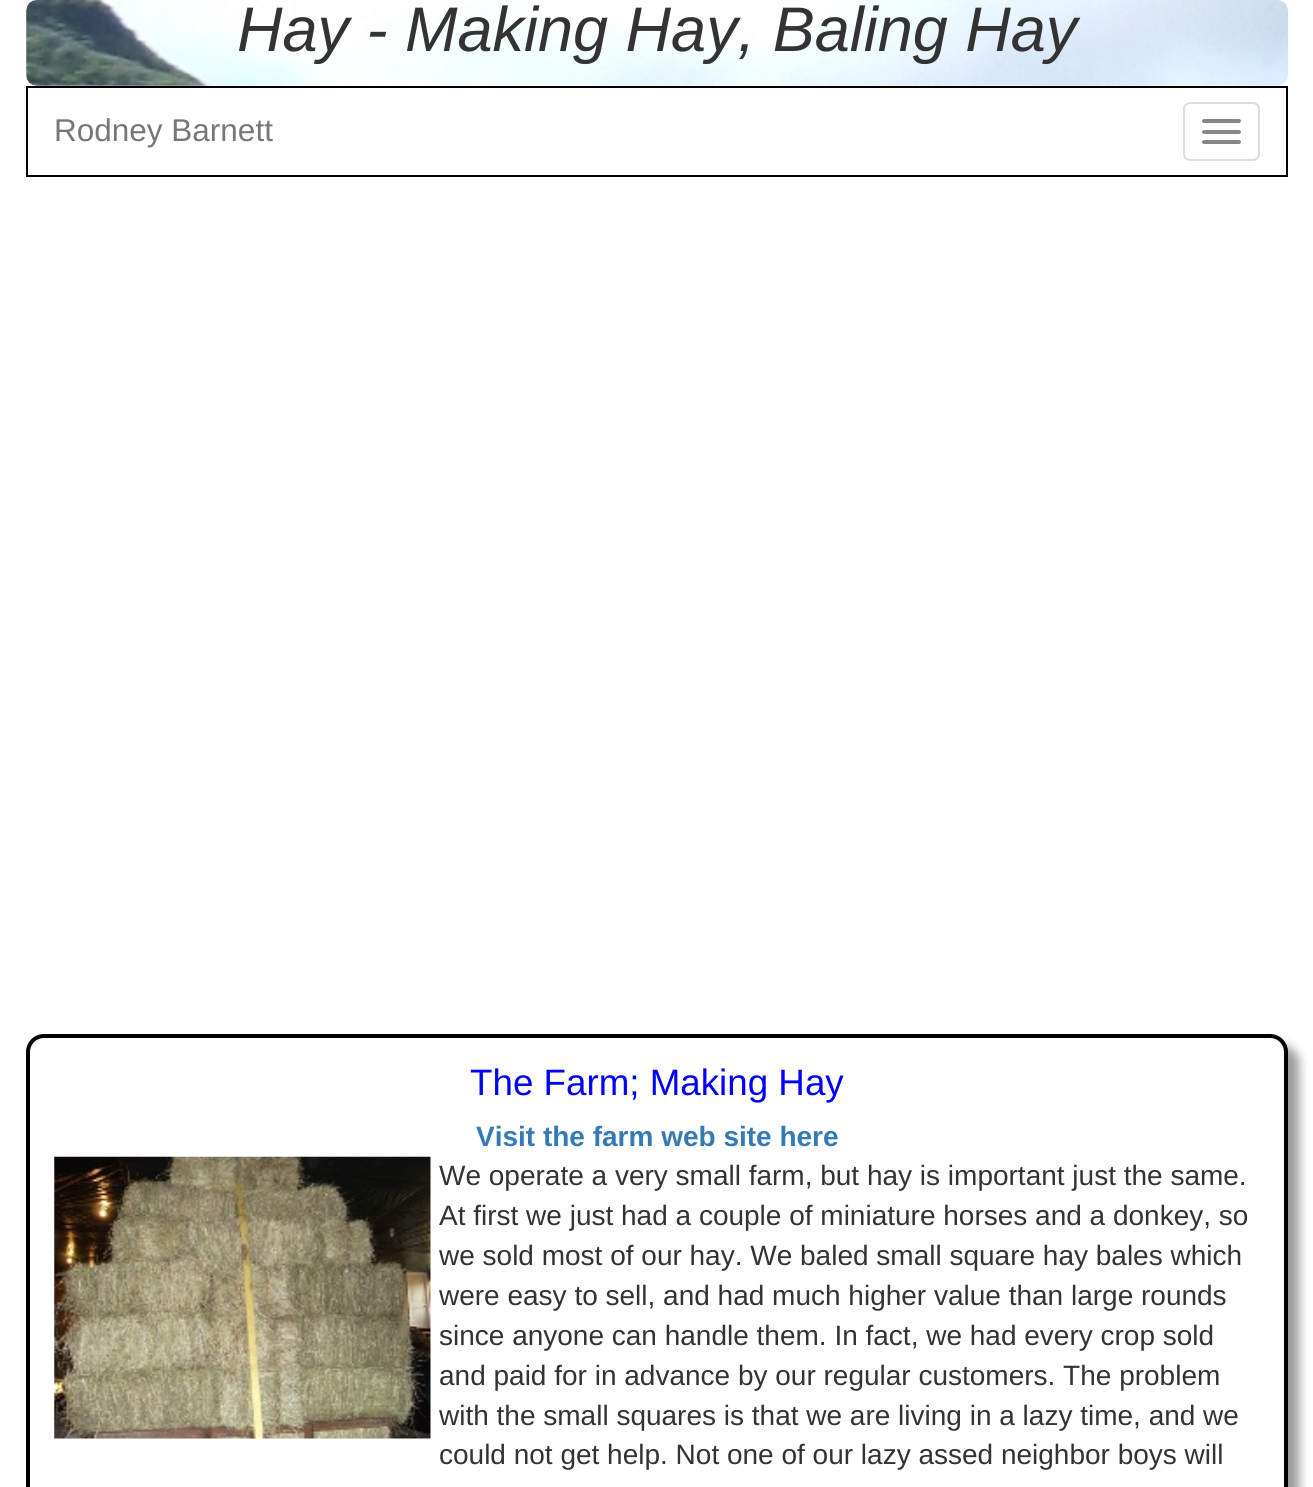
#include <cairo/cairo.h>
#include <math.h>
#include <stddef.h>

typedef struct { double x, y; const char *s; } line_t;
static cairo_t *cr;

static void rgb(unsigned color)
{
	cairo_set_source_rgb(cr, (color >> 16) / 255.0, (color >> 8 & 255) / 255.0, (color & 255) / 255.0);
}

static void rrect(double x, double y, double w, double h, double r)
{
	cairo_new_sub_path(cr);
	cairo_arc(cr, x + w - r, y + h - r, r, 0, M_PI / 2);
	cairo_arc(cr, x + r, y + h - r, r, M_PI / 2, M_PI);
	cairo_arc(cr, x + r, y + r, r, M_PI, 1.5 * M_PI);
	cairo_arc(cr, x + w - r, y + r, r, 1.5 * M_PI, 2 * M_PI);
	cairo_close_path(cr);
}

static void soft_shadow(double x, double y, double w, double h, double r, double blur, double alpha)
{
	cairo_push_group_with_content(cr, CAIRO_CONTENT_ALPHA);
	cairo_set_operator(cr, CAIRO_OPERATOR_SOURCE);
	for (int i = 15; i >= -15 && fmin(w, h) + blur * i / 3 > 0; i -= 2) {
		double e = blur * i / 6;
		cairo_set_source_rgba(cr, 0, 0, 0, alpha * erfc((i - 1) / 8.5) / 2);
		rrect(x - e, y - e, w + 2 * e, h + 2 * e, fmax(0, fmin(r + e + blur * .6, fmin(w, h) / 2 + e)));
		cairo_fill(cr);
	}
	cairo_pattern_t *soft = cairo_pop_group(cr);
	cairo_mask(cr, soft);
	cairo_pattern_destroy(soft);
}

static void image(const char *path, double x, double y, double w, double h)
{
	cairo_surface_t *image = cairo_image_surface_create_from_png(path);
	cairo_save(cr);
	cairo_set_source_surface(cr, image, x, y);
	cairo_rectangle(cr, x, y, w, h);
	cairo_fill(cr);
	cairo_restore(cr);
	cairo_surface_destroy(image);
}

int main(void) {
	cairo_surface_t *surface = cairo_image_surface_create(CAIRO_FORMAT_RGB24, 1313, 1487);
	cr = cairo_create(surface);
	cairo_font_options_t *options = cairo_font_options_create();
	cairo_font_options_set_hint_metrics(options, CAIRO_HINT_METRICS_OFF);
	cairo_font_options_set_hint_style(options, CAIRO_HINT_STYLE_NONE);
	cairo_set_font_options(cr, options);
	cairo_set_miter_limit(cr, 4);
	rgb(0xffffff);
	cairo_paint(cr);
	image("img/1.png", 26, 0, 1262, 86);
	cairo_rectangle(cr, 27, 87, 1260, 89);
	rgb(0x000000);
	cairo_stroke(cr);
	rrect(1184, 103, 75, 57, 6);
	rgb(0xdddddd);
	cairo_stroke(cr);
	rgb(0x888888);
	rrect(1202, 119, 39, 4, 2);
	cairo_fill(cr);
	rrect(1202, 130, 39, 4, 2);
	cairo_fill(cr);
	rrect(1202, 140, 39, 4, 2);
	cairo_fill(cr);
	rgb(0x999999);
	soft_shadow(37, 1045, 1262, 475, 18, 5, 1);
	rgb(0xffffff);
	rrect(28, 1036, 1258, 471, 16);
	cairo_fill_preserve(cr);
	rgb(0x000000);
	cairo_set_line_width(cr, 4);
	cairo_stroke(cr);
	image("img/2.png", 54, 1156, 377, 283);
	cairo_select_font_face(cr, "Liberation Sans", CAIRO_FONT_SLANT_ITALIC, CAIRO_FONT_WEIGHT_NORMAL);
	cairo_set_font_size(cr, 63);
	rgb(0x333333);
	cairo_move_to(cr, 237, 51);
	cairo_show_text(cr, "Hay - Making Hay, Baling Hay");
	cairo_select_font_face(cr, "Liberation Sans", CAIRO_FONT_SLANT_NORMAL, CAIRO_FONT_WEIGHT_NORMAL);
	cairo_set_font_size(cr, 31.5);
	rgb(0x777777);
	cairo_move_to(cr, 54, 141);
	cairo_show_text(cr, "Rodney Barnett");
	cairo_set_font_size(cr, 36.75);
	rgb(0x0000ff);
	cairo_move_to(cr, 470, 1095);
	cairo_show_text(cr, "The Farm; Making Hay");
	cairo_select_font_face(cr, "Liberation Sans", CAIRO_FONT_SLANT_NORMAL, CAIRO_FONT_WEIGHT_BOLD);
	cairo_set_font_size(cr, 28);
	rgb(0x337ab7);
	cairo_move_to(cr, 476, 1146);
	cairo_show_text(cr, "Visit the farm web site here");
	cairo_select_font_face(cr, "Liberation Sans", CAIRO_FONT_SLANT_NORMAL, CAIRO_FONT_WEIGHT_NORMAL);
	rgb(0x333333);
	{
		static const line_t items[] = {
			{439, 1185, "We operate a very small farm, but hay is important just the same."},
			{439, 1225, "At first we just had a couple of miniature horses and a donkey, so"},
			{439, 1265, "we sold most of our hay. We baled small square hay bales which"},
			{439, 1305, "were easy to sell, and had much higher value than large rounds"},
			{439, 1345, "since anyone can handle them. In fact, we had every crop sold"},
			{439, 1385, "and paid for in advance by our regular customers. The problem"},
			{439, 1425, "with the small squares is that we are living in a lazy time, and we"},
			{439, 1464, "could not get help. Not one of our lazy assed neighbor boys will"},
		};
		for (size_t i = 0; i < sizeof items / sizeof *items; i++) {
			cairo_move_to(cr, items[i].x, items[i].y);
			cairo_show_text(cr, items[i].s);
		}
	}
	cairo_surface_write_to_png(surface, "page.png");
	cairo_font_options_destroy(options);
	cairo_destroy(cr);
	cairo_surface_destroy(surface);
	return 0;
}
